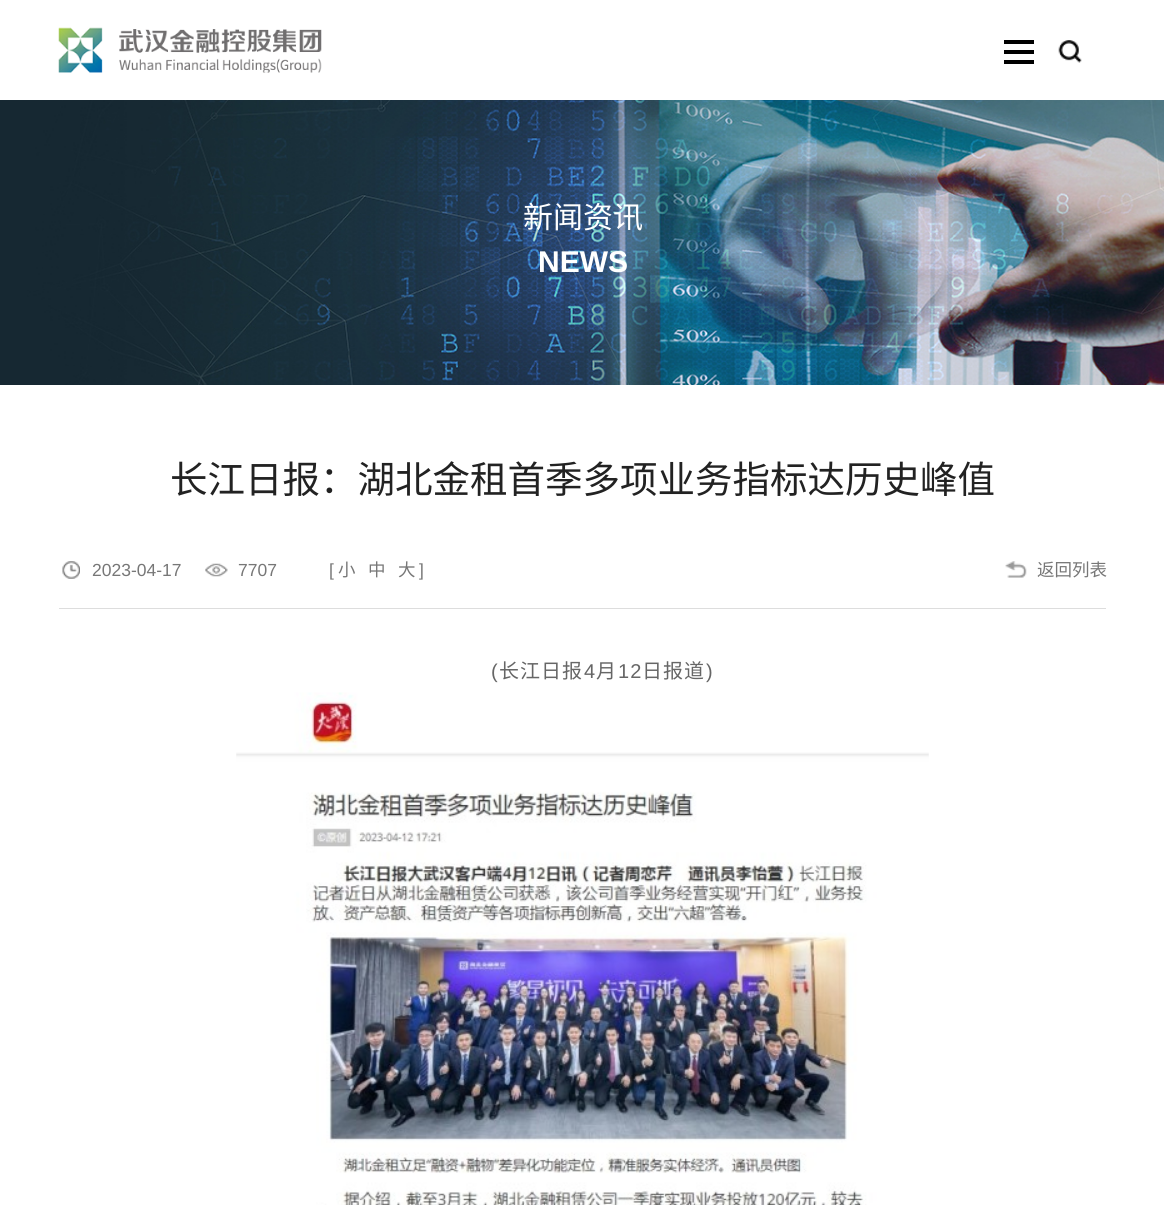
#include <cairo/cairo.h>
#include <math.h>
#include <stddef.h>

typedef struct { double x, y; const char *s; } line_t;
typedef struct { double x, y, w, h; unsigned color; } box_t;
static cairo_t *cr;

static void rgb(unsigned color)
{
	cairo_set_source_rgb(cr, (color >> 16) / 255.0, (color >> 8 & 255) / 255.0, (color & 255) / 255.0);
}

static void tracked(double x, double y, const char *s, double letter, double word)
{
	cairo_move_to(cr, x, y);
	while (*s) {
		char ch[5] = {0};
		int n = 0;
		do ch[n++] = *s++; while ((*s & 0xC0) == 0x80);
		cairo_show_text(cr, ch);
		cairo_rel_move_to(cr, letter + word * (*ch == ' '), 0);
	}
}

static void image(const char *path, double x, double y, double w, double h)
{
	cairo_surface_t *image = cairo_image_surface_create_from_png(path);
	cairo_save(cr);
	cairo_set_source_surface(cr, image, x, y);
	cairo_rectangle(cr, x, y, w, h);
	cairo_fill(cr);
	cairo_restore(cr);
	cairo_surface_destroy(image);
}

int main(void) {
	cairo_surface_t *surface = cairo_image_surface_create(CAIRO_FORMAT_RGB24, 1164, 1205);
	cr = cairo_create(surface);
	cairo_font_options_t *options = cairo_font_options_create();
	cairo_font_options_set_hint_metrics(options, CAIRO_HINT_METRICS_OFF);
	cairo_font_options_set_hint_style(options, CAIRO_HINT_STYLE_NONE);
	cairo_set_font_options(cr, options);
	cairo_set_miter_limit(cr, 4);
	rgb(0xffffff);
	cairo_paint(cr);
	image("img/1.png", 58, 27, 264, 46);
	{
		static const box_t items[] = {
			{1004, 40, 30, 4, 0x000000},
			{1004, 50, 30, 4, 0x000000},
			{1004, 60, 30, 4, 0x000000},
		};
		for (size_t i = 0; i < sizeof items / sizeof *items; i++) {
			rgb(items[i].color);
			cairo_rectangle(cr, items[i].x, items[i].y, items[i].w, items[i].h);
			cairo_fill(cr);
		}
	}
	image("img/2.png", 1058, 40, 24, 23);
	image("img/3.png", 0, 100, 1164, 285);
	rgb(0xdddddd);
	cairo_rectangle(cr, 59, 608, 1047, 1);
	cairo_fill(cr);
	image("img/4.png", 62, 561, 18, 18);
	image("img/5.png", 205, 563, 23, 14);
	image("img/6.png", 1005, 561, 22, 17);
	image("img/7.png", 236, 692, 693, 513);
	cairo_select_font_face(cr, "Noto Sans CJK SC", CAIRO_FONT_SLANT_NORMAL, CAIRO_FONT_WEIGHT_NORMAL);
	cairo_set_font_size(cr, 30);
	rgb(0xffffff);
	cairo_move_to(cr, 523, 228);
	cairo_show_text(cr, "新闻资讯");
	cairo_select_font_face(cr, "Liberation Sans", CAIRO_FONT_SLANT_NORMAL, CAIRO_FONT_WEIGHT_BOLD);
	cairo_move_to(cr, 538, 272);
	cairo_show_text(cr, "NEWS");
	cairo_select_font_face(cr, "Noto Sans CJK SC", CAIRO_FONT_SLANT_NORMAL, CAIRO_FONT_WEIGHT_NORMAL);
	cairo_set_font_size(cr, 37.5);
	rgb(0x222222);
	cairo_move_to(cr, 170, 493);
	cairo_show_text(cr, "长江日报：湖北金租首季多项业务指标达历史峰值");
	cairo_select_font_face(cr, "Liberation Sans", CAIRO_FONT_SLANT_NORMAL, CAIRO_FONT_WEIGHT_NORMAL);
	cairo_set_font_size(cr, 17.5);
	rgb(0x777777);
	{
		static const line_t items[] = {
			{92, 576, "2023-04-17"},
			{238, 576, "7707"},
			{329, 576, "["},
		};
		for (size_t i = 0; i < sizeof items / sizeof *items; i++) {
			cairo_move_to(cr, items[i].x, items[i].y);
			cairo_show_text(cr, items[i].s);
		}
	}
	cairo_select_font_face(cr, "Noto Sans CJK SC", CAIRO_FONT_SLANT_NORMAL, CAIRO_FONT_WEIGHT_NORMAL);
	{
		static const line_t items[] = {
			{338, 576, "小"},
			{368, 576, "中"},
			{398, 576, "大"},
		};
		for (size_t i = 0; i < sizeof items / sizeof *items; i++) {
			cairo_move_to(cr, items[i].x, items[i].y);
			cairo_show_text(cr, items[i].s);
		}
	}
	cairo_select_font_face(cr, "Liberation Sans", CAIRO_FONT_SLANT_NORMAL, CAIRO_FONT_WEIGHT_NORMAL);
	cairo_move_to(cr, 419, 576);
	cairo_show_text(cr, "]");
	cairo_select_font_face(cr, "Noto Sans CJK SC", CAIRO_FONT_SLANT_NORMAL, CAIRO_FONT_WEIGHT_NORMAL);
	cairo_move_to(cr, 1037, 576);
	cairo_show_text(cr, "返回列表");
	cairo_select_font_face(cr, "Liberation Sans", CAIRO_FONT_SLANT_NORMAL, CAIRO_FONT_WEIGHT_NORMAL);
	cairo_set_font_size(cr, 20);
	rgb(0x666666);
	tracked(491, 678, "(", 1, 0);
	cairo_select_font_face(cr, "Noto Sans CJK SC", CAIRO_FONT_SLANT_NORMAL, CAIRO_FONT_WEIGHT_NORMAL);
	tracked(499, 678, "长江日报", 1, 0);
	cairo_select_font_face(cr, "Liberation Sans", CAIRO_FONT_SLANT_NORMAL, CAIRO_FONT_WEIGHT_NORMAL);
	tracked(584, 678, "4", 1, 0);
	cairo_select_font_face(cr, "Noto Sans CJK SC", CAIRO_FONT_SLANT_NORMAL, CAIRO_FONT_WEIGHT_NORMAL);
	tracked(596, 678, "月", 1, 0);
	cairo_select_font_face(cr, "Liberation Sans", CAIRO_FONT_SLANT_NORMAL, CAIRO_FONT_WEIGHT_NORMAL);
	tracked(618, 678, "12", 1, 0);
	cairo_select_font_face(cr, "Noto Sans CJK SC", CAIRO_FONT_SLANT_NORMAL, CAIRO_FONT_WEIGHT_NORMAL);
	tracked(642, 678, "日报道", 1, 0);
	cairo_select_font_face(cr, "Liberation Sans", CAIRO_FONT_SLANT_NORMAL, CAIRO_FONT_WEIGHT_NORMAL);
	tracked(706, 678, ")", 1, 0);
	cairo_surface_write_to_png(surface, "page.png");
	cairo_font_options_destroy(options);
	cairo_destroy(cr);
	cairo_surface_destroy(surface);
	return 0;
}
